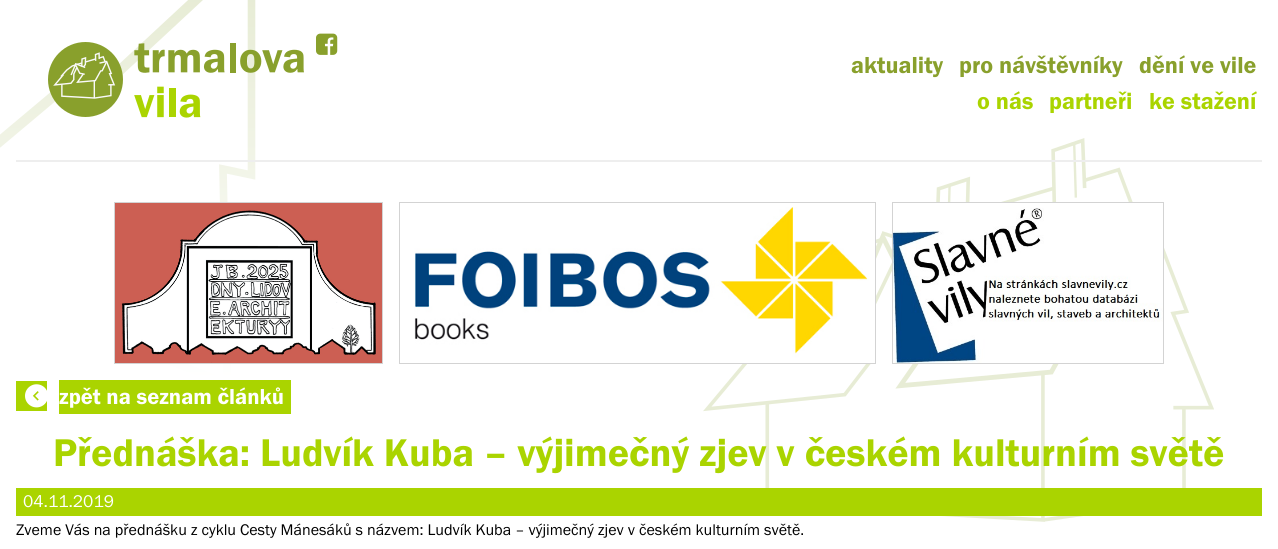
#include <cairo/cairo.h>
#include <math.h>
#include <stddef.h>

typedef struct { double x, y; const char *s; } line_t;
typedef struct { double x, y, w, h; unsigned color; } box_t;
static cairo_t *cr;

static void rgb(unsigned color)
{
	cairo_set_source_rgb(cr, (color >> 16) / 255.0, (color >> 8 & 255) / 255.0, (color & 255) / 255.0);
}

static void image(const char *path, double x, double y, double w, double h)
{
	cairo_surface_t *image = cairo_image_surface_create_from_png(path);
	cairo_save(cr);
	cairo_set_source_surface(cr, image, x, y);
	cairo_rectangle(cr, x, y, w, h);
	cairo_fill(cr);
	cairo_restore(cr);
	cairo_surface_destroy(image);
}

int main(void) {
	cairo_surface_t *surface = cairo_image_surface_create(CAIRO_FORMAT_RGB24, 1278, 549);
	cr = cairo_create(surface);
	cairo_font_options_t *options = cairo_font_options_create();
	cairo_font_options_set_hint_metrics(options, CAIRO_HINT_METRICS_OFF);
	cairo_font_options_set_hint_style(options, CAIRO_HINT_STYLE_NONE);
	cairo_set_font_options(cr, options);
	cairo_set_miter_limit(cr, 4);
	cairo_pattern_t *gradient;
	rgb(0xffffff);
	cairo_paint(cr);
	cairo_new_path(cr);
	cairo_move_to(cr, -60.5, 192);
	cairo_line_to(cr, 89.5, 66);
	cairo_line_to(cr, 118.5, 71.5);
	cairo_line_to(cr, 251, -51.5);
	gradient = cairo_pattern_create_linear(219, -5.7, 219, 380);
	cairo_pattern_add_color_stop_rgba(gradient, 0, 0.906, 0.925, 0.835, 1);
	cairo_pattern_add_color_stop_rgba(gradient, 1, 1, 1, 1, 1);
	cairo_set_source(cr, gradient);
	cairo_pattern_destroy(gradient);
	cairo_set_line_width(cr, 10.1);
	cairo_stroke(cr);
	cairo_new_path(cr);
	cairo_move_to(cr, 251.5, -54);
	cairo_line_to(cr, 251.5, 175);
	cairo_line_to(cr, 223, 169);
	cairo_line_to(cr, 227.5, 383.5);
	cairo_line_to(cr, 152.5, 354.5);
	cairo_set_line_width(cr, 7.6);
	cairo_stroke(cr);
	image("img/2.png", 703, 138, 511, 384);
	rgb(0xeeeeee);
	cairo_rectangle(cr, 16, 160, 1246, 2);
	cairo_fill(cr);
	image("img/1.png", 48, 42, 256, 76);
	cairo_rectangle(cr, 114.5, 202.5, 268, 161);
	rgb(0xd3d3d3);
	cairo_set_line_width(cr, 1);
	cairo_stroke(cr);
	image("img/3.png", 115, 203, 267, 160);
	cairo_rectangle(cr, 399.5, 202.5, 476, 161);
	cairo_stroke(cr);
	image("img/4.png", 414, 207, 461, 156);
	cairo_rectangle(cr, 892.5, 202.5, 271, 161);
	cairo_stroke(cr);
	image("img/5.png", 893, 203, 270, 160);
	{
		static const box_t items[] = {
			{16, 381, 31, 30, 0xaad400},
			{59, 380, 232, 34, 0xaad400},
			{16, 488, 1246, 28, 0xaad400},
		};
		for (size_t i = 0; i < sizeof items / sizeof *items; i++) {
			rgb(items[i].color);
			cairo_rectangle(cr, items[i].x, items[i].y, items[i].w, items[i].h);
			cairo_fill(cr);
		}
	}
	cairo_select_font_face(cr, "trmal", CAIRO_FONT_SLANT_NORMAL, CAIRO_FONT_WEIGHT_BOLD);
	cairo_set_font_size(cr, 24);
	rgb(0x89a02c);
	cairo_move_to(cr, 316, 53);
	cairo_show_text(cr, "F");
	cairo_select_font_face(cr, "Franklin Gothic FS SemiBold", CAIRO_FONT_SLANT_NORMAL, CAIRO_FONT_WEIGHT_NORMAL);
	{
		static const line_t items[] = {
			{851, 73, "aktuality"},
			{959, 73, "pro návštěvníky"},
			{1139, 73, "dění ve vile"},
		};
		for (size_t i = 0; i < sizeof items / sizeof *items; i++) {
			cairo_move_to(cr, items[i].x, items[i].y);
			cairo_show_text(cr, items[i].s);
		}
	}
	rgb(0xaad400);
	{
		static const line_t items[] = {
			{977, 109, "o nás"},
			{1049, 109, "partneři"},
			{1149, 109, "ke stažení"},
		};
		for (size_t i = 0; i < sizeof items / sizeof *items; i++) {
			cairo_move_to(cr, items[i].x, items[i].y);
			cairo_show_text(cr, items[i].s);
		}
	}
	cairo_select_font_face(cr, "trmal", CAIRO_FONT_SLANT_NORMAL, CAIRO_FONT_WEIGHT_BOLD);
	cairo_set_font_size(cr, 22.5);
	rgb(0xffffff);
	cairo_move_to(cr, 25, 404);
	cairo_show_text(cr, "<");
	cairo_select_font_face(cr, "Franklin Gothic FS SemiBold", CAIRO_FONT_SLANT_NORMAL, CAIRO_FONT_WEIGHT_NORMAL);
	cairo_move_to(cr, 59, 404);
	cairo_show_text(cr, "zpět na seznam článků");
	cairo_set_font_size(cr, 40);
	rgb(0xaad400);
	cairo_move_to(cr, 53, 466);
	cairo_show_text(cr, "Přednáška: Ludvík Kuba – výjimečný zjev v českém kulturním světě");
	cairo_select_font_face(cr, "Franklin Gothic FS", CAIRO_FONT_SLANT_NORMAL, CAIRO_FONT_WEIGHT_NORMAL);
	cairo_set_font_size(cr, 17.5);
	rgb(0xffffff);
	cairo_move_to(cr, 23, 507);
	cairo_show_text(cr, "04.11.2019");
	cairo_set_font_size(cr, 16);
	rgb(0x000000);
	cairo_move_to(cr, 16, 535);
	cairo_show_text(cr, "Zveme Vás na přednášku z cyklu Cesty Mánesáků s názvem: Ludvík Kuba – výjimečný zjev v českém kulturním světě.");
	cairo_surface_write_to_png(surface, "page.png");
	cairo_font_options_destroy(options);
	cairo_destroy(cr);
	cairo_surface_destroy(surface);
	return 0;
}
